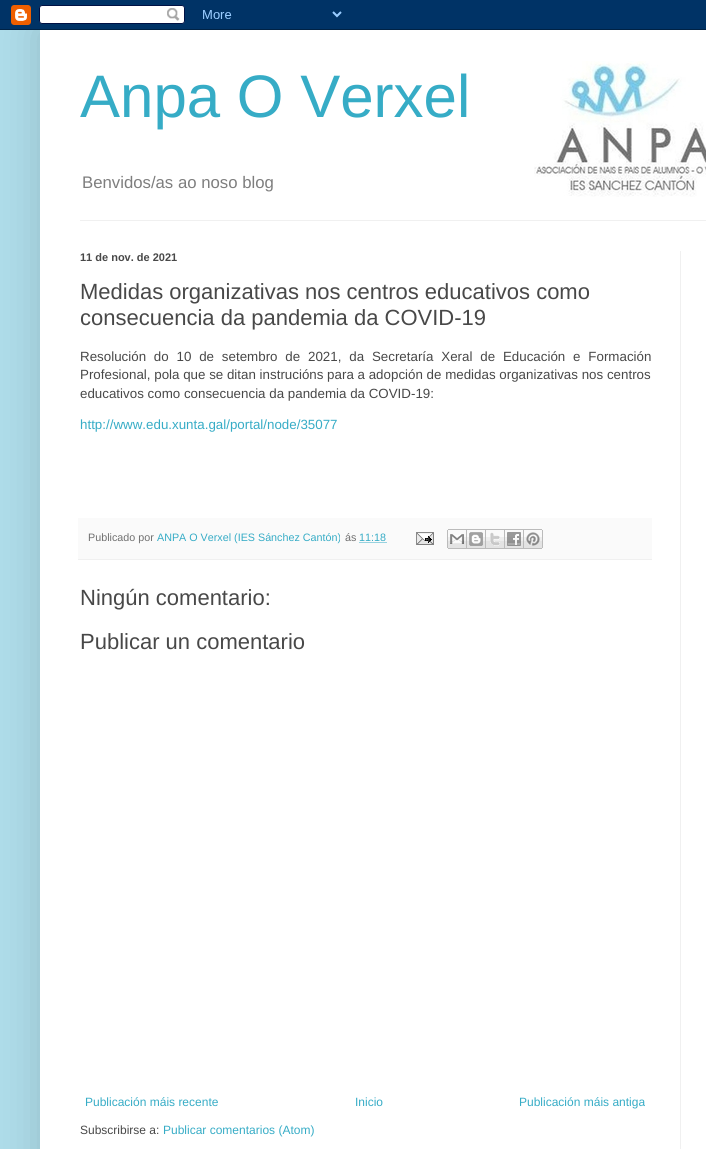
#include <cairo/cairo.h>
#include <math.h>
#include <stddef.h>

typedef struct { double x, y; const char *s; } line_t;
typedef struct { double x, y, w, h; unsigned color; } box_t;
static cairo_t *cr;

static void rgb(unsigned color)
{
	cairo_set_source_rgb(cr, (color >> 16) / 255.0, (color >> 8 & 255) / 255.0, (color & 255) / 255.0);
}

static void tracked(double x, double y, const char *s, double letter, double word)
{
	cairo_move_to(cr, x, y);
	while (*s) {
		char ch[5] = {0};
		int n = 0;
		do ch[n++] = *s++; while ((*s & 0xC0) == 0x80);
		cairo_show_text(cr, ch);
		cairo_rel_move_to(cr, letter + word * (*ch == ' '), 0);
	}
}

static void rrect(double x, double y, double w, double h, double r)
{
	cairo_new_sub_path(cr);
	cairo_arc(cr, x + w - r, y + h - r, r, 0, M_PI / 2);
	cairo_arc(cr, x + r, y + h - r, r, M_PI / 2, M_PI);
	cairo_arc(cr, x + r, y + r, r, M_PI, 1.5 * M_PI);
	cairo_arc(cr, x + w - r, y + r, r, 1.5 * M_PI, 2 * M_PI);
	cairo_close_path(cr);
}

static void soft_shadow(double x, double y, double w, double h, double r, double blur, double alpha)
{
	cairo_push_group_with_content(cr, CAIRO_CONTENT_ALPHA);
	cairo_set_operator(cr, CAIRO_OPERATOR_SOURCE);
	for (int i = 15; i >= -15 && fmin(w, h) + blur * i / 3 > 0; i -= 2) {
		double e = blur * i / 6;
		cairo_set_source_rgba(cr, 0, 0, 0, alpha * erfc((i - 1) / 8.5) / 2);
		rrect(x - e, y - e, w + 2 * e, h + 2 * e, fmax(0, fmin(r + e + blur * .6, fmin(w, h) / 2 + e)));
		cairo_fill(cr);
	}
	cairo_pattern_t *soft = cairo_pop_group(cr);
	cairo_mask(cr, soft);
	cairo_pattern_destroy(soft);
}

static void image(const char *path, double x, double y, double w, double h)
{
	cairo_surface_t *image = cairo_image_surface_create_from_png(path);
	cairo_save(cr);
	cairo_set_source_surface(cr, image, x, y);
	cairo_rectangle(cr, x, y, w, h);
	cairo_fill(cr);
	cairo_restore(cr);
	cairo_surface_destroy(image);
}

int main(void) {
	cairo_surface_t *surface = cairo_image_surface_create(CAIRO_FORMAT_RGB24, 706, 1149);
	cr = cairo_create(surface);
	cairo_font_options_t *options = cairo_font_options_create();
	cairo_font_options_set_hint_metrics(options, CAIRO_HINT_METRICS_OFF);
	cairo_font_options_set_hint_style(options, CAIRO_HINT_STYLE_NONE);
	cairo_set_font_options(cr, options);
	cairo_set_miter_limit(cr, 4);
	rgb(0xaedce9);
	cairo_paint(cr);
	rgb(0x000000);
	soft_shadow(40, 30, 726, 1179, 0, 20, 0.15);
	image("img/1.png", 0, 0, 706, 30);
	rgb(0xffffff);
	cairo_rectangle(cr, 40, 30, 666, 1119);
	cairo_fill(cr);
	image("img/2.png", 534, 61, 172, 136);
	{
		static const box_t items[] = {
			{80, 220, 626, 1, 0xf0f0f0},
			{78, 518, 574, 41, 0xfafafa},
			{78, 559, 574, 1, 0xf0f0f0},
		};
		for (size_t i = 0; i < sizeof items / sizeof *items; i++) {
			rgb(items[i].color);
			cairo_rectangle(cr, items[i].x, items[i].y, items[i].w, items[i].h);
			cairo_fill(cr);
		}
	}
	cairo_new_path(cr);
	cairo_move_to(cr, 359.5, 542.5);
	cairo_line_to(cr, 386.5, 542.5);
	rgb(0x36acc6);
	cairo_set_line_width(cr, 1);
	cairo_set_dash(cr, (double[]){1, 1}, 2, 0);
	cairo_stroke(cr);
	image("img/3.png", 416, 532, 18, 13);
	image("img/4.png", 447, 529, 20, 20);
	image("img/5.png", 467, 529, 19, 20);
	image("img/6.png", 486, 529, 19, 20);
	image("img/7.png", 505, 529, 19, 20);
	image("img/8.png", 524, 529, 19, 20);
	rgb(0xf0f0f0);
	cairo_rectangle(cr, 680, 251, 1, 898);
	cairo_fill(cr);
	cairo_select_font_face(cr, "Liberation Sans", CAIRO_FONT_SLANT_NORMAL, CAIRO_FONT_WEIGHT_NORMAL);
	cairo_set_font_size(cr, 60);
	rgb(0x36acc6);
	cairo_move_to(cr, 80, 117);
	cairo_show_text(cr, "Anpa O Verxel");
	cairo_set_font_size(cr, 16.75);
	rgb(0x7e7e7e);
	cairo_move_to(cr, 82, 188);
	cairo_show_text(cr, "Benvidos/as ao noso blog");
	cairo_select_font_face(cr, "Liberation Sans", CAIRO_FONT_SLANT_NORMAL, CAIRO_FONT_WEIGHT_BOLD);
	cairo_set_font_size(cr, 11);
	rgb(0x484848);
	cairo_move_to(cr, 80, 261);
	cairo_show_text(cr, "11 de nov. de 2021");
	cairo_select_font_face(cr, "Liberation Sans", CAIRO_FONT_SLANT_NORMAL, CAIRO_FONT_WEIGHT_NORMAL);
	cairo_set_font_size(cr, 22);
	cairo_move_to(cr, 80, 299);
	cairo_show_text(cr, "Medidas organizativas nos centros educativos como");
	cairo_move_to(cr, 80, 325);
	cairo_show_text(cr, "consecuencia da pandemia da COVID-19");
	cairo_set_font_size(cr, 13.35);
	tracked(80, 361, "Resolución do 10 de setembro de 2021, da Secretaría Xeral de Educación e Formación", 0, 4.1);
	cairo_move_to(cr, 80, 379);
	cairo_show_text(cr, "Profesional, pola que se ditan instrucións para a adopción de medidas organizativas nos centros");
	cairo_move_to(cr, 80, 398);
	cairo_show_text(cr, "educativos como consecuencia da pandemia da COVID-19:");
	rgb(0x36acc6);
	cairo_move_to(cr, 80, 429);
	cairo_show_text(cr, "http://www.edu.xunta.gal/portal/node/35077");
	cairo_set_font_size(cr, 10.75);
	rgb(0x707070);
	cairo_move_to(cr, 88, 541);
	cairo_show_text(cr, "Publicado por");
	rgb(0x36acc6);
	cairo_move_to(cr, 157, 541);
	cairo_show_text(cr, "ANPA O Verxel (IES Sánchez Cantón)");
	rgb(0x707070);
	cairo_move_to(cr, 345, 541);
	cairo_show_text(cr, "ás");
	rgb(0x36acc6);
	cairo_move_to(cr, 359, 541);
	cairo_show_text(cr, "11:18");
	cairo_set_font_size(cr, 22);
	rgb(0x484848);
	cairo_move_to(cr, 80, 605);
	cairo_show_text(cr, "Ningún comentario:");
	cairo_move_to(cr, 80, 649);
	cairo_show_text(cr, "Publicar un comentario");
	cairo_set_font_size(cr, 12);
	rgb(0x36acc6);
	{
		static const line_t items[] = {
			{85, 1106, "Publicación máis recente"},
			{355, 1106, "Inicio"},
			{519, 1106, "Publicación máis antiga"},
		};
		for (size_t i = 0; i < sizeof items / sizeof *items; i++) {
			cairo_move_to(cr, items[i].x, items[i].y);
			cairo_show_text(cr, items[i].s);
		}
	}
	rgb(0x484848);
	cairo_move_to(cr, 80, 1134);
	cairo_show_text(cr, "Subscribirse a:");
	rgb(0x36acc6);
	cairo_move_to(cr, 163, 1134);
	cairo_show_text(cr, "Publicar comentarios (Atom)");
	cairo_surface_write_to_png(surface, "page.png");
	cairo_font_options_destroy(options);
	cairo_destroy(cr);
	cairo_surface_destroy(surface);
	return 0;
}
